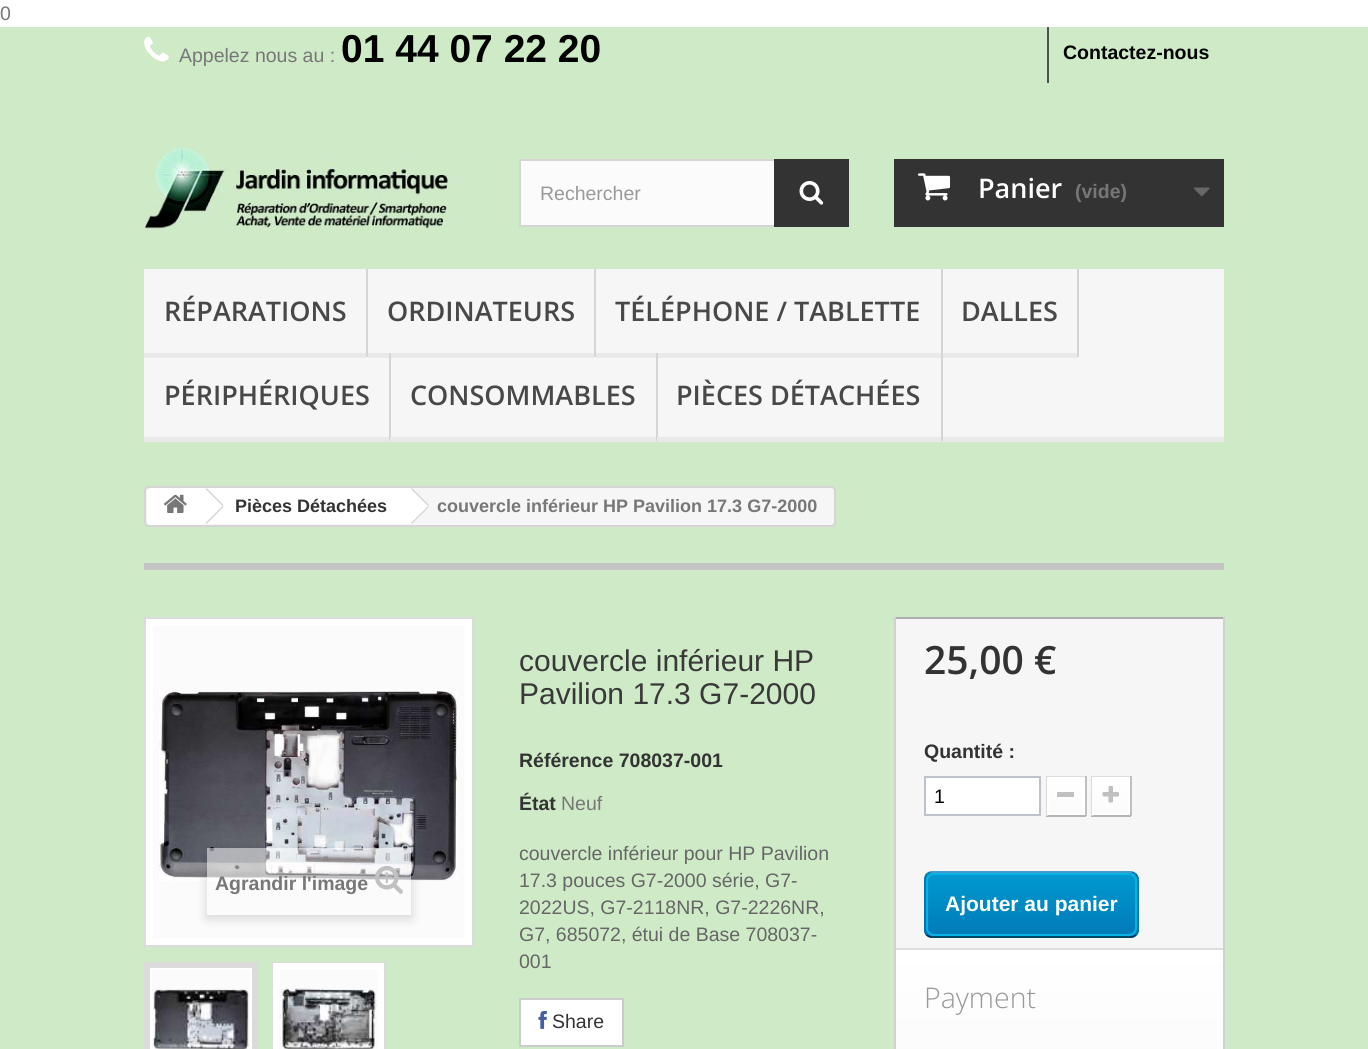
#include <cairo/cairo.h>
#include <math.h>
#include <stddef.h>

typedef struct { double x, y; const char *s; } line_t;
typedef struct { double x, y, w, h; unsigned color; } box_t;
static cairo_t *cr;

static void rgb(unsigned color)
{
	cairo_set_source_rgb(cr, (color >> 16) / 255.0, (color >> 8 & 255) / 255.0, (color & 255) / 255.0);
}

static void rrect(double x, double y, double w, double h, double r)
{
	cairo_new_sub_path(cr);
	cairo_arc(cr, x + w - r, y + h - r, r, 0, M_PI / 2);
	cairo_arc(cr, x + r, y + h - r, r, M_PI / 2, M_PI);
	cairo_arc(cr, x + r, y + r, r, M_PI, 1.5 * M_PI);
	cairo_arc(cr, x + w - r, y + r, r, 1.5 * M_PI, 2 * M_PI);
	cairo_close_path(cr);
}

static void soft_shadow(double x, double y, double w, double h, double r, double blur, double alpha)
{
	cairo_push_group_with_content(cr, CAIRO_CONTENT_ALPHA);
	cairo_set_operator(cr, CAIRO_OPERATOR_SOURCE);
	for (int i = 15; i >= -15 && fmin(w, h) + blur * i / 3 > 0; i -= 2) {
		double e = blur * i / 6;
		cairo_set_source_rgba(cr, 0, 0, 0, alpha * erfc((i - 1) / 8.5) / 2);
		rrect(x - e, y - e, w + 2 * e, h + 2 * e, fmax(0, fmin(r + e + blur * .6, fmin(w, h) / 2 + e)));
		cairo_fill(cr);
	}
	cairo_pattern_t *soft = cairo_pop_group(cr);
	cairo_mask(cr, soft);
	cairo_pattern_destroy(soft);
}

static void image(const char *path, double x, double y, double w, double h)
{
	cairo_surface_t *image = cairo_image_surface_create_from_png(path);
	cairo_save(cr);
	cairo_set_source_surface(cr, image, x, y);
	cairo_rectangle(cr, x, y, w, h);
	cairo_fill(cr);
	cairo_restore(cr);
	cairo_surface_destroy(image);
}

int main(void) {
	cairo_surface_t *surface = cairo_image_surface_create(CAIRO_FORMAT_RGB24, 1368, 1049);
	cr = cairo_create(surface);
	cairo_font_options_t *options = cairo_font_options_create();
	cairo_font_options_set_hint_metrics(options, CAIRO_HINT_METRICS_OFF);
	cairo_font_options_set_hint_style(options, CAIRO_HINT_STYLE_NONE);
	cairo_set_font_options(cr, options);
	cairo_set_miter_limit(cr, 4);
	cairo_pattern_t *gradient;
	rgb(0xffffff);
	cairo_paint(cr);
	rgb(0xcfeac7);
	cairo_rectangle(cr, 0, 27, 1368, 1022);
	cairo_fill(cr);
	image("img/1.png", 144, 36, 25, 26);
	rgb(0x515151);
	cairo_rectangle(cr, 1047, 27, 2, 56);
	cairo_fill(cr);
	image("img/2.png", 144, 144, 309, 87);
	rgb(0xfbfbfb);
	cairo_rectangle(cr, 521, 161, 253, 64);
	cairo_fill(cr);
	cairo_rectangle(cr, 520, 160, 328, 66);
	rgb(0xd6d4d4);
	cairo_stroke(cr);
	rgb(0x333333);
	cairo_rectangle(cr, 774, 159, 75, 68);
	cairo_fill(cr);
	image("img/3.png", 799, 181, 25, 24);
	cairo_rectangle(cr, 894, 159, 330, 68);
	cairo_fill(cr);
	image("img/4.png", 918, 173, 33, 28);
	image("img/5.png", 1194, 187, 16, 10);
	{
		static const box_t items[] = {
			{144, 269, 1080, 168, 0xf6f6f6},
			{144, 437, 1080, 5, 0xe9e9e9},
			{366, 269, 2, 88, 0xd6d4d4},
			{144, 353, 222, 5, 0xe9e9e9},
			{594, 269, 2, 88, 0xd6d4d4},
			{368, 353, 226, 5, 0xe9e9e9},
			{941, 269, 2, 88, 0xd6d4d4},
			{596, 353, 345, 5, 0xe9e9e9},
			{1077, 269, 2, 88, 0xd6d4d4},
			{942, 353, 135, 5, 0xe9e9e9},
			{389, 353, 2, 88, 0xd6d4d4},
			{656, 353, 2, 88, 0xd6d4d4},
			{390, 437, 1, 4, 0xe9e9e9},
			{941, 353, 2, 88, 0xd6d4d4},
			{657, 437, 1, 4, 0xe9e9e9},
		};
		for (size_t i = 0; i < sizeof items / sizeof *items; i++) {
			rgb(items[i].color);
			cairo_rectangle(cr, items[i].x, items[i].y, items[i].w, items[i].h);
			cairo_fill(cr);
		}
	}
	rgb(0xf6f6f6);
	rrect(145, 487, 690, 39, 4);
	cairo_fill_preserve(cr);
	rgb(0xd6d4d4);
	cairo_stroke(cr);
	rgb(0xffffff);
	cairo_new_path(cr);
	cairo_move_to(cr, 152, 488);
	cairo_line_to(cr, 204, 488);
	cairo_line_to(cr, 204, 525);
	cairo_line_to(cr, 152, 525);
	cairo_curve_to(cr, 149, 525, 147, 523, 147, 520);
	cairo_line_to(cr, 147, 493);
	cairo_curve_to(cr, 147, 490, 149, 488, 152, 488);
	cairo_close_path(cr);
	cairo_fill(cr);
	image("img/6.png", 164, 494, 23, 19);
	cairo_rectangle(cr, 204, 488, 206, 36);
	cairo_fill(cr);
	rgb(0xd6d4d4);
	cairo_new_path(cr);
	cairo_move_to(cr, 206.5, 488);
	cairo_line_to(cr, 223.5, 505);
	cairo_line_to(cr, 222.5, 506);
	cairo_line_to(cr, 205.5, 489);
	cairo_close_path(cr);
	cairo_move_to(cr, 222.5, 506);
	cairo_line_to(cr, 223.5, 507);
	cairo_line_to(cr, 206.5, 524);
	cairo_line_to(cr, 205.5, 523);
	cairo_close_path(cr);
	cairo_fill(cr);
	rgb(0xffffff);
	cairo_new_path(cr);
	cairo_move_to(cr, 413.5, 489);
	cairo_line_to(cr, 428, 503.5);
	cairo_curve_to(cr, 429.5, 505, 429.5, 507, 428, 508);
	cairo_line_to(cr, 413.5, 523);
	cairo_curve_to(cr, 412, 524, 410, 524, 409, 523);
	cairo_line_to(cr, 394, 508);
	cairo_curve_to(cr, 393, 507, 393, 505, 394, 503.5);
	cairo_line_to(cr, 409, 489);
	cairo_curve_to(cr, 410, 487.5, 412, 487.5, 413.5, 489);
	cairo_close_path(cr);
	cairo_fill(cr);
	rgb(0xd6d4d4);
	cairo_new_path(cr);
	cairo_move_to(cr, 412, 488);
	cairo_line_to(cr, 429, 505);
	cairo_line_to(cr, 428, 506);
	cairo_line_to(cr, 411, 489);
	cairo_close_path(cr);
	cairo_move_to(cr, 428, 506);
	cairo_line_to(cr, 429, 507);
	cairo_line_to(cr, 412, 524);
	cairo_line_to(cr, 411, 523);
	cairo_close_path(cr);
	cairo_fill(cr);
	rgb(0xc4c4c4);
	cairo_rectangle(cr, 144, 563, 1080, 7);
	cairo_fill(cr);
	rgb(0xffffff);
	cairo_rectangle(cr, 145, 618, 328, 328);
	cairo_fill_preserve(cr);
	rgb(0xdbdbdb);
	cairo_stroke(cr);
	rgb(0xfbfbfb);
	cairo_rectangle(cr, 153, 626, 312, 312);
	cairo_fill(cr);
	image("img/7.png", 159, 691, 299, 190);
	cairo_save(cr);
	cairo_set_fill_rule(cr, CAIRO_FILL_RULE_EVEN_ODD);
	cairo_new_path(cr);
	cairo_move_to(cr, 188, 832);
	cairo_line_to(cr, 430, 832);
	cairo_line_to(cr, 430, 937);
	cairo_line_to(cr, 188, 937);
	cairo_close_path(cr);
	cairo_move_to(cr, 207, 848);
	cairo_line_to(cr, 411, 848);
	cairo_line_to(cr, 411, 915);
	cairo_line_to(cr, 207, 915);
	cairo_close_path(cr);
	cairo_clip(cr);
	rgb(0x000000);
	soft_shadow(207, 851, 204, 67, 0, 6, 0.16);
	cairo_restore(cr);
	cairo_set_source_rgba(cr, 1, 1, 1, 0.5);
	cairo_rectangle(cr, 207, 848, 204, 33);
	cairo_fill(cr);
	image("img/8.png", 375, 866, 28, 28);
	cairo_rectangle(cr, 145, 963, 112, 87);
	rgb(0xdbdbdb);
	cairo_stroke(cr);
	rgb(0xfbfbfb);
	cairo_rectangle(cr, 152, 970, 98, 19);
	cairo_fill(cr);
	cairo_rectangle(cr, 148.5, 965.5, 106, 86);
	rgb(0xdbdbdb);
	cairo_set_line_width(cr, 5);
	cairo_stroke(cr);
	cairo_rectangle(cr, 151, 969, 100, 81);
	rgb(0xffffff);
	cairo_set_line_width(cr, 2);
	cairo_stroke(cr);
	image("img/9.png", 151, 989, 100, 60);
	cairo_rectangle(cr, 273, 963, 112, 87);
	rgb(0xdbdbdb);
	cairo_stroke(cr);
	rgb(0xfbfbfb);
	cairo_rectangle(cr, 280, 970, 98, 18);
	cairo_fill(cr);
	cairo_rectangle(cr, 275.5, 965.5, 106, 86);
	rgb(0xffffff);
	cairo_set_line_width(cr, 5);
	cairo_stroke(cr);
	cairo_rectangle(cr, 279, 969, 100, 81);
	cairo_set_line_width(cr, 2);
	cairo_stroke(cr);
	image("img/10.png", 279, 988, 99, 61);
	cairo_rectangle(cr, 520, 999, 103, 47);
	cairo_fill_preserve(cr);
	rgb(0xcccccc);
	cairo_stroke(cr);
	image("img/11.png", 538, 1010, 9, 19);
	{
		static const box_t items[] = {
			{896, 619, 327, 329, 0xf6f6f6},
			{894, 617, 330, 2, 0xb0afaf},
			{1223, 617, 2, 432, 0xd2d0d0},
			{894, 617, 2, 432, 0xd2d0d0},
		};
		for (size_t i = 0; i < sizeof items / sizeof *items; i++) {
			rgb(items[i].color);
			cairo_rectangle(cr, items[i].x, items[i].y, items[i].w, items[i].h);
			cairo_fill(cr);
		}
	}
	rgb(0xffffff);
	cairo_rectangle(cr, 925, 777, 115, 38);
	cairo_fill_preserve(cr);
	rgb(0xbdc2c9);
	cairo_stroke(cr);
	{
		static const box_t items[] = {
			{1046, 776, 40, 1, 0xdedcdc},
			{1085, 776, 2, 40, 0xc1bfbf},
			{1046, 815, 40, 2, 0xb5b4b4},
			{1046, 776, 2, 40, 0xdad8d8},
		};
		for (size_t i = 0; i < sizeof items / sizeof *items; i++) {
			rgb(items[i].color);
			cairo_rectangle(cr, items[i].x, items[i].y, items[i].w, items[i].h);
			cairo_fill(cr);
		}
	}
	gradient = cairo_pattern_create_linear(1066, 779, 1066, 813);
	cairo_pattern_add_color_stop_rgba(gradient, 0, 1, 1, 1, 1);
	cairo_pattern_add_color_stop_rgba(gradient, 1, 0.984, 0.984, 0.984, 1);
	cairo_set_source(cr, gradient);
	cairo_pattern_destroy(gradient);
	cairo_rectangle(cr, 1049, 779, 34, 34);
	cairo_fill(cr);
	cairo_rectangle(cr, 1048, 778, 36, 36);
	rgb(0xffffff);
	cairo_stroke(cr);
	{
		static const box_t items[] = {
			{1057, 792, 17, 5, 0xc0c0c0},
			{1091, 776, 40, 1, 0xdedcdc},
			{1130, 776, 2, 40, 0xc1bfbf},
			{1091, 815, 40, 2, 0xb5b4b4},
			{1091, 776, 2, 40, 0xdad8d8},
		};
		for (size_t i = 0; i < sizeof items / sizeof *items; i++) {
			rgb(items[i].color);
			cairo_rectangle(cr, items[i].x, items[i].y, items[i].w, items[i].h);
			cairo_fill(cr);
		}
	}
	gradient = cairo_pattern_create_linear(1111, 779, 1111, 813);
	cairo_pattern_add_color_stop_rgba(gradient, 0, 1, 1, 1, 1);
	cairo_pattern_add_color_stop_rgba(gradient, 1, 0.984, 0.984, 0.984, 1);
	cairo_set_source(cr, gradient);
	cairo_pattern_destroy(gradient);
	cairo_rectangle(cr, 1094, 779, 34, 34);
	cairo_fill(cr);
	cairo_rectangle(cr, 1093, 778, 36, 36);
	rgb(0xffffff);
	cairo_stroke(cr);
	image("img/12.png", 1102, 786, 17, 17);
	cairo_save(cr);
	rrect(924, 872, 215, 66, 8);
	cairo_clip(cr);
	gradient = cairo_pattern_create_linear(1031, 873, 1031, 936);
	cairo_pattern_add_color_stop_rgba(gradient, 0, 0, 0.604, 0.816, 1);
	cairo_pattern_add_color_stop_rgba(gradient, 1, 0, 0.478, 0.718, 1);
	cairo_set_source(cr, gradient);
	cairo_pattern_destroy(gradient);
	cairo_rectangle(cr, 924, 873, 215, 63);
	cairo_fill(cr);
	gradient = cairo_pattern_create_linear(1031, 936, 1031, 999);
	cairo_pattern_add_color_stop_rgba(gradient, 0, 0, 0.604, 0.816, 1);
	cairo_pattern_add_color_stop_rgba(gradient, 1, 0, 0.478, 0.718, 1);
	cairo_set_source(cr, gradient);
	cairo_pattern_destroy(gradient);
	cairo_rectangle(cr, 924, 936, 215, 2);
	cairo_fill(cr);
	cairo_restore(cr);
	cairo_new_path(cr);
	cairo_move_to(cr, 926.5, 874);
	cairo_curve_to(cr, 928, 873, 929.5, 872, 931.5, 872);
	cairo_line_to(cr, 1131, 872);
	cairo_curve_to(cr, 1133, 872, 1134.5, 873, 1136, 874);
	rgb(0x0079b6);
	cairo_set_line_width(cr, 1.5);
	cairo_stroke(cr);
	cairo_new_path(cr);
	cairo_move_to(cr, 1136, 874);
	cairo_curve_to(cr, 1137, 875.5, 1138, 877, 1138, 879);
	cairo_line_to(cr, 1138, 930);
	cairo_curve_to(cr, 1138, 932, 1137, 933.5, 1136, 935);
	rgb(0x006fa8);
	cairo_stroke(cr);
	cairo_new_path(cr);
	cairo_move_to(cr, 1136, 935);
	cairo_curve_to(cr, 1134.5, 936, 1133, 937, 1131, 937);
	cairo_line_to(cr, 931.5, 937);
	cairo_curve_to(cr, 929.5, 937, 928, 936, 926.5, 935);
	rgb(0x012740);
	cairo_stroke(cr);
	cairo_new_path(cr);
	cairo_move_to(cr, 926.5, 935);
	cairo_curve_to(cr, 925.5, 933.5, 925, 932, 925, 930);
	cairo_line_to(cr, 925, 879);
	cairo_curve_to(cr, 925, 877, 925.5, 875.5, 926.5, 874);
	rgb(0x006fa8);
	cairo_stroke(cr);
	rrect(927, 874, 209, 61, 7);
	rgb(0x06b2e6);
	cairo_set_line_width(cr, 2);
	cairo_stroke(cr);
	gradient = cairo_pattern_create_linear(1059, 950, 1059, 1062);
	cairo_pattern_add_color_stop_rgba(gradient, 0, 1, 1, 1, 1);
	cairo_pattern_add_color_stop_rgba(gradient, 1, 0.984, 0.984, 0.984, 1);
	cairo_set_source(cr, gradient);
	cairo_pattern_destroy(gradient);
	cairo_rectangle(cr, 896, 950, 327, 99);
	cairo_fill(cr);
	rgb(0xdfdede);
	cairo_rectangle(cr, 896, 948, 327, 2);
	cairo_fill(cr);
	cairo_select_font_face(cr, "Liberation Sans", CAIRO_FONT_SLANT_NORMAL, CAIRO_FONT_WEIGHT_NORMAL);
	cairo_set_font_size(cr, 19.5);
	rgb(0x777777);
	cairo_move_to(cr, 0, 20);
	cairo_show_text(cr, "0");
	cairo_move_to(cr, 179, 62);
	cairo_show_text(cr, "Appelez nous au :");
	cairo_select_font_face(cr, "Liberation Sans", CAIRO_FONT_SLANT_NORMAL, CAIRO_FONT_WEIGHT_BOLD);
	cairo_set_font_size(cr, 39);
	rgb(0x000000);
	cairo_move_to(cr, 341, 62);
	cairo_show_text(cr, "01 44 07 22 20");
	cairo_set_font_size(cr, 19.5);
	cairo_move_to(cr, 1063, 59);
	cairo_show_text(cr, "Contactez-nous");
	cairo_select_font_face(cr, "Liberation Sans", CAIRO_FONT_SLANT_NORMAL, CAIRO_FONT_WEIGHT_NORMAL);
	rgb(0x999999);
	cairo_move_to(cr, 540, 200);
	cairo_show_text(cr, "Rechercher");
	cairo_select_font_face(cr, "Open Sans SemiBold", CAIRO_FONT_SLANT_NORMAL, CAIRO_FONT_WEIGHT_NORMAL);
	cairo_set_font_size(cr, 27);
	rgb(0xffffff);
	cairo_move_to(cr, 978, 198);
	cairo_show_text(cr, "Panier");
	cairo_select_font_face(cr, "Liberation Sans", CAIRO_FONT_SLANT_NORMAL, CAIRO_FONT_WEIGHT_BOLD);
	cairo_set_font_size(cr, 19.5);
	rgb(0x777777);
	cairo_move_to(cr, 1075, 198);
	cairo_show_text(cr, "(vide)");
	cairo_select_font_face(cr, "Open Sans SemiBold", CAIRO_FONT_SLANT_NORMAL, CAIRO_FONT_WEIGHT_NORMAL);
	cairo_set_font_size(cr, 27);
	rgb(0x484848);
	{
		static const line_t items[] = {
			{164, 321, "RÉPARATIONS"},
			{387, 321, "ORDINATEURS"},
			{615, 321, "TÉLÉPHONE / TABLETTE"},
			{961, 321, "DALLES"},
			{164, 405, "PÉRIPHÉRIQUES"},
			{410, 405, "CONSOMMABLES"},
			{676, 405, "PIÈCES DÉTACHÉES"},
		};
		for (size_t i = 0; i < sizeof items / sizeof *items; i++) {
			cairo_move_to(cr, items[i].x, items[i].y);
			cairo_show_text(cr, items[i].s);
		}
	}
	cairo_select_font_face(cr, "Liberation Sans", CAIRO_FONT_SLANT_NORMAL, CAIRO_FONT_WEIGHT_BOLD);
	cairo_set_font_size(cr, 18);
	rgb(0x333333);
	cairo_move_to(cr, 235, 512);
	cairo_show_text(cr, "Pièces Détachées");
	rgb(0x777777);
	cairo_move_to(cr, 437, 512);
	cairo_show_text(cr, "couvercle inférieur HP Pavilion 17.3 G7-2000");
	cairo_set_font_size(cr, 19.5);
	cairo_move_to(cr, 215, 890);
	cairo_show_text(cr, "Agrandir l'image");
	cairo_select_font_face(cr, "Liberation Sans", CAIRO_FONT_SLANT_NORMAL, CAIRO_FONT_WEIGHT_NORMAL);
	cairo_set_font_size(cr, 30);
	rgb(0x3a3939);
	cairo_move_to(cr, 519, 671);
	cairo_show_text(cr, "couvercle inférieur HP");
	cairo_move_to(cr, 519, 704);
	cairo_show_text(cr, "Pavilion 17.3 G7-2000");
	cairo_select_font_face(cr, "Liberation Sans", CAIRO_FONT_SLANT_NORMAL, CAIRO_FONT_WEIGHT_BOLD);
	cairo_set_font_size(cr, 19.5);
	rgb(0x333333);
	cairo_move_to(cr, 519, 767);
	cairo_show_text(cr, "Référence 708037-001");
	cairo_move_to(cr, 519, 810);
	cairo_show_text(cr, "État");
	cairo_select_font_face(cr, "Liberation Sans", CAIRO_FONT_SLANT_NORMAL, CAIRO_FONT_WEIGHT_NORMAL);
	rgb(0x777777);
	cairo_move_to(cr, 561, 810);
	cairo_show_text(cr, "Neuf");
	rgb(0x666666);
	{
		static const line_t items[] = {
			{519, 860, "couvercle inférieur pour HP Pavilion"},
			{519, 887, "17.3 pouces G7-2000 série, G7-"},
			{519, 914, "2022US, G7-2118NR, G7-2226NR,"},
			{519, 941, "G7, 685072, étui de Base 708037-"},
			{519, 968, "001"},
		};
		for (size_t i = 0; i < sizeof items / sizeof *items; i++) {
			cairo_move_to(cr, items[i].x, items[i].y);
			cairo_show_text(cr, items[i].s);
		}
	}
	rgb(0x333333);
	cairo_move_to(cr, 552, 1028);
	cairo_show_text(cr, "Share");
	cairo_select_font_face(cr, "Open Sans SemiBold", CAIRO_FONT_SLANT_NORMAL, CAIRO_FONT_WEIGHT_NORMAL);
	cairo_set_font_size(cr, 39);
	cairo_move_to(cr, 924, 674);
	cairo_show_text(cr, "25,00 €");
	cairo_select_font_face(cr, "Liberation Sans", CAIRO_FONT_SLANT_NORMAL, CAIRO_FONT_WEIGHT_BOLD);
	cairo_set_font_size(cr, 19.5);
	cairo_move_to(cr, 924, 758);
	cairo_show_text(cr, "Quantité :");
	cairo_select_font_face(cr, "Liberation Sans", CAIRO_FONT_SLANT_NORMAL, CAIRO_FONT_WEIGHT_NORMAL);
	rgb(0x000000);
	cairo_move_to(cr, 934, 803);
	cairo_show_text(cr, "1");
	cairo_select_font_face(cr, "Liberation Sans", CAIRO_FONT_SLANT_NORMAL, CAIRO_FONT_WEIGHT_BOLD);
	cairo_set_font_size(cr, 21);
	rgb(0xffffff);
	cairo_move_to(cr, 945, 911);
	cairo_show_text(cr, "Ajouter au panier");
	cairo_select_font_face(cr, "Open Sans Light", CAIRO_FONT_SLANT_NORMAL, CAIRO_FONT_WEIGHT_NORMAL);
	cairo_set_font_size(cr, 28.5);
	rgb(0x999999);
	cairo_move_to(cr, 924, 1008);
	cairo_show_text(cr, "Payment");
	cairo_surface_write_to_png(surface, "page.png");
	cairo_font_options_destroy(options);
	cairo_destroy(cr);
	cairo_surface_destroy(surface);
	return 0;
}
